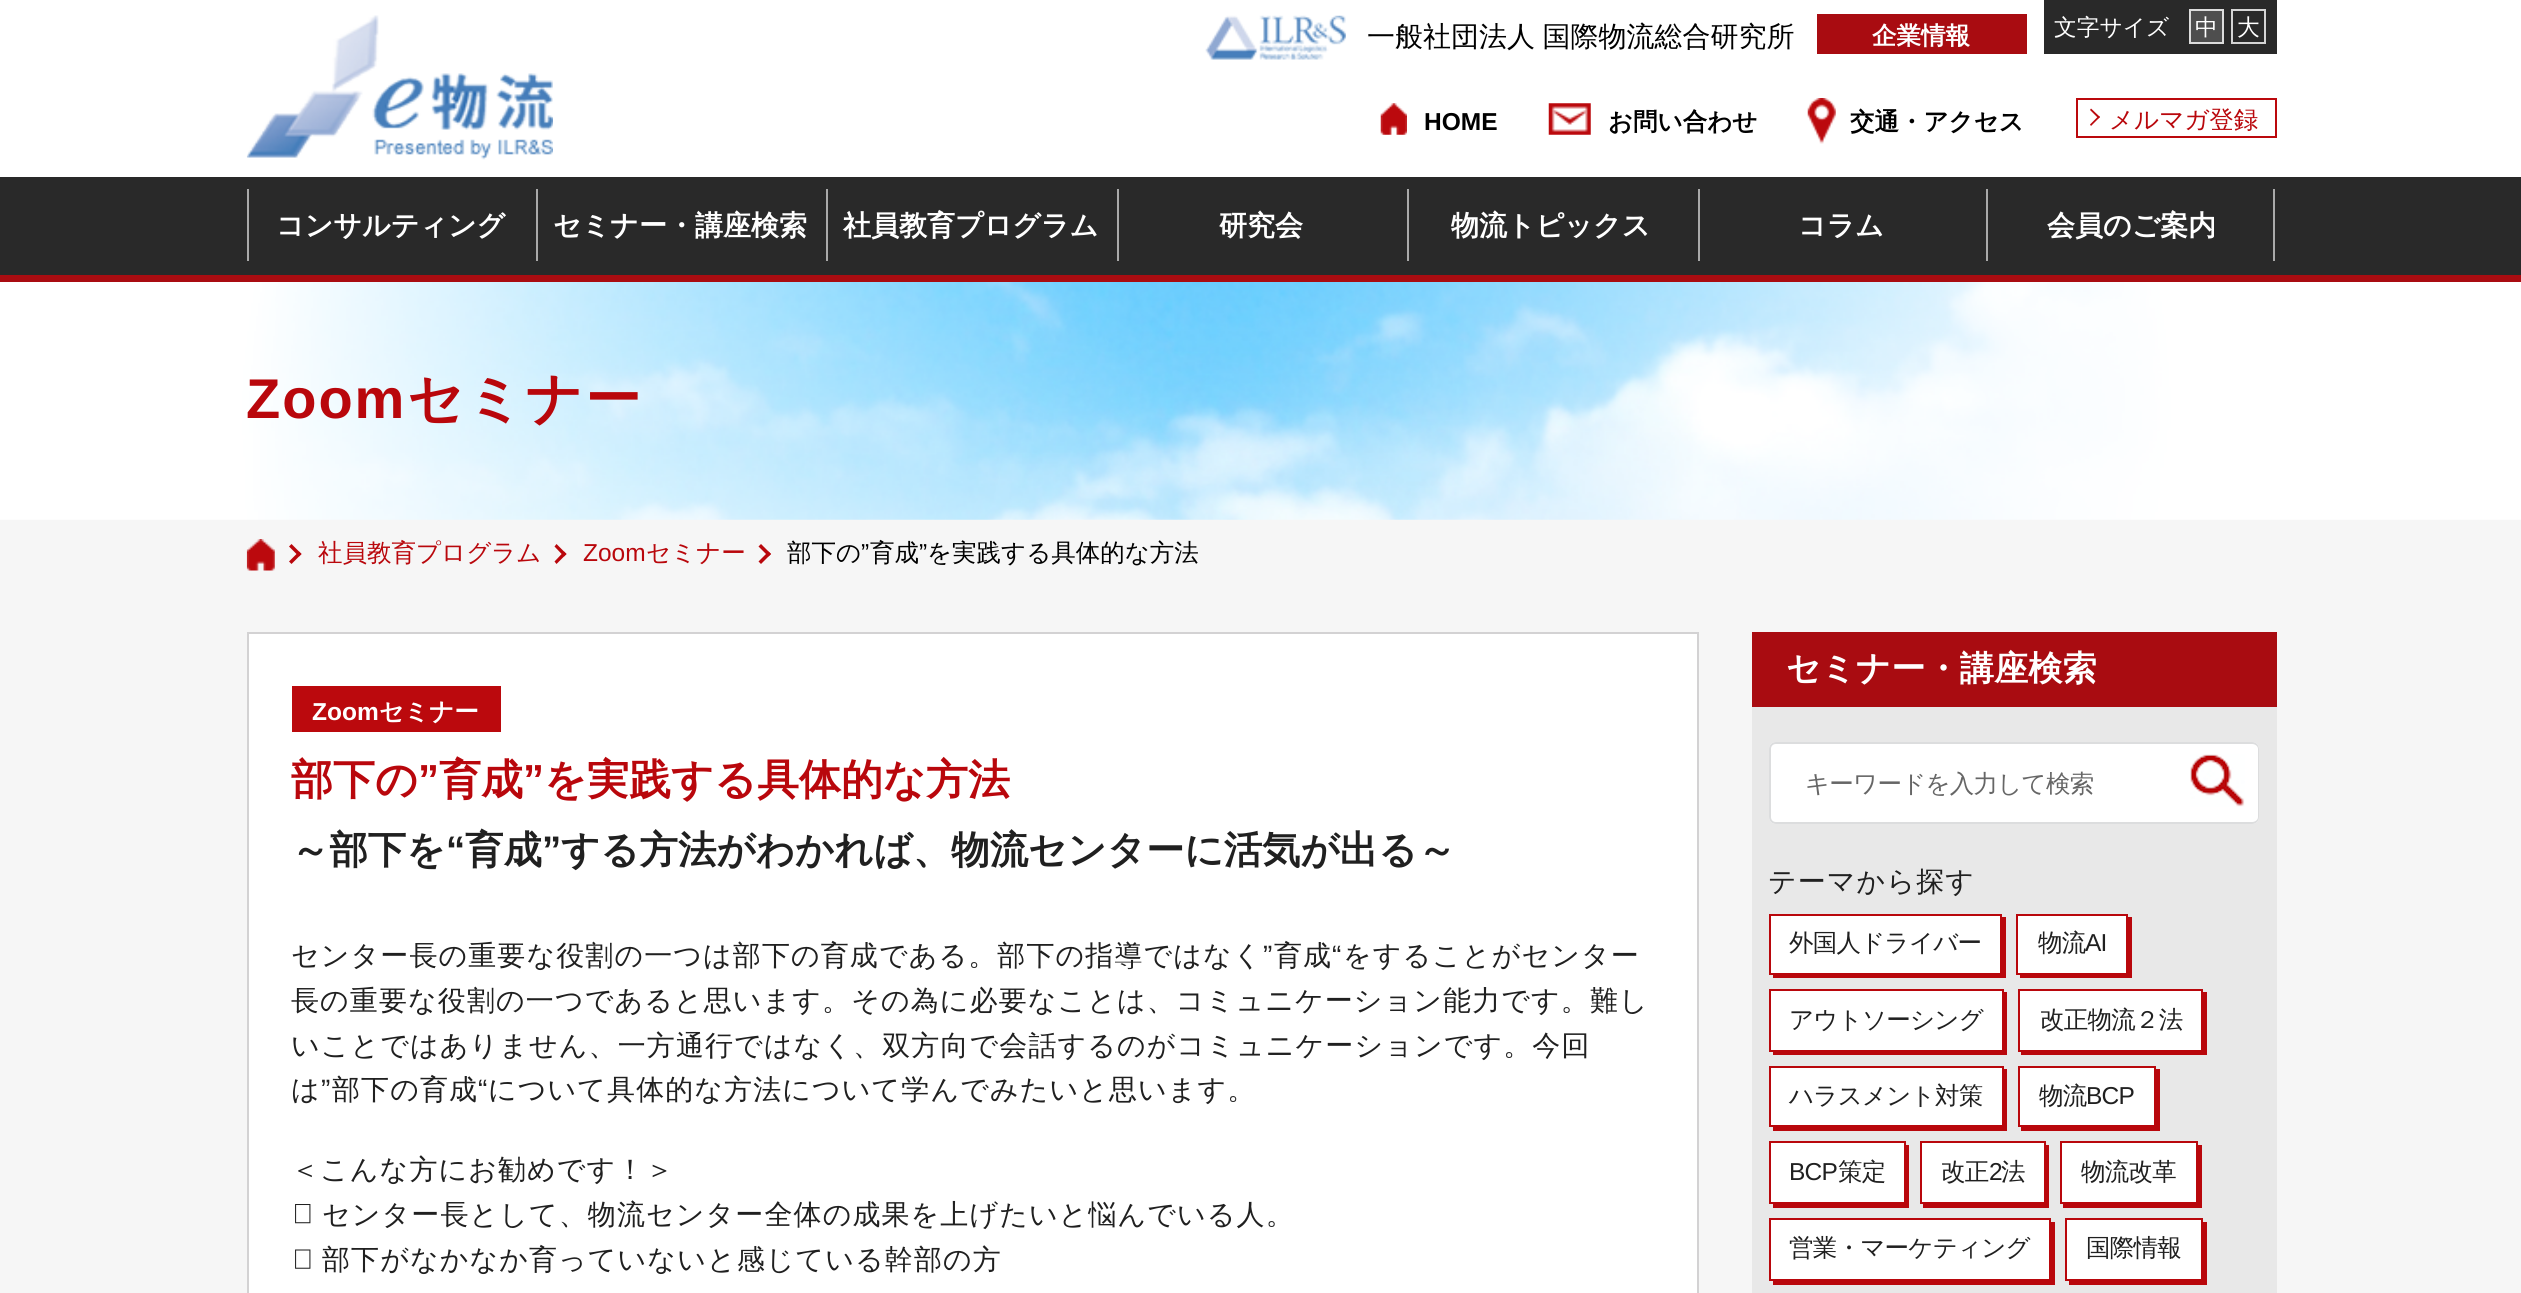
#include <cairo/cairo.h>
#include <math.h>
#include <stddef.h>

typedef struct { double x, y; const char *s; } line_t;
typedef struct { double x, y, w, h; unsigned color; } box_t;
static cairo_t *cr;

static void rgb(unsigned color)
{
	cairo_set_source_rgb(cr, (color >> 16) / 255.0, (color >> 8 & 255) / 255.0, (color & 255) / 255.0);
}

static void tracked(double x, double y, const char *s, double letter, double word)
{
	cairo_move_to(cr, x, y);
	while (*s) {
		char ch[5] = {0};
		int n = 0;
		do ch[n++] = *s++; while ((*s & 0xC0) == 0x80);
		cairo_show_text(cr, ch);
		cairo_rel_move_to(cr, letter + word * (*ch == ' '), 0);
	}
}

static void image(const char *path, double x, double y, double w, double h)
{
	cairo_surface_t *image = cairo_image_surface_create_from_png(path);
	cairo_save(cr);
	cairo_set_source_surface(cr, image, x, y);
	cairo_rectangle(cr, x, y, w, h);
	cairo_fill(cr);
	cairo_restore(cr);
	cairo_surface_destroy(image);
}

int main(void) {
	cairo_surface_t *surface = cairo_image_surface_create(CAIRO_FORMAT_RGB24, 2521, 1293);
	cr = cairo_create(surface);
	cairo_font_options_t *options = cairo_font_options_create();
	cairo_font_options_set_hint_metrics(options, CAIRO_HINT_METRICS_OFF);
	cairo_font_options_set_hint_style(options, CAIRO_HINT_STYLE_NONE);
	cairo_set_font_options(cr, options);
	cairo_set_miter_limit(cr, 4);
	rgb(0xf6f6f6);
	cairo_paint(cr);
	rgb(0xffffff);
	cairo_rectangle(cr, 0, 0, 2521, 177);
	cairo_fill(cr);
	image("img/1.png", 246, 15, 307, 145);
	image("img/2.png", 1205, 15, 141, 45);
	rgb(0xa90c11);
	cairo_rectangle(cr, 1817, 14, 210, 40);
	cairo_fill(cr);
	rgb(0x292929);
	cairo_rectangle(cr, 2044, 0, 233, 54);
	cairo_fill(cr);
	rgb(0x4e4e4e);
	cairo_rectangle(cr, 2190, 10, 33, 33);
	cairo_fill_preserve(cr);
	rgb(0xdcdcdc);
	cairo_stroke(cr);
	cairo_rectangle(cr, 2232, 10, 33, 33);
	rgb(0xd4d4d4);
	cairo_stroke(cr);
	image("img/3.png", 1380, 103, 27, 32);
	image("img/4.png", 1548, 103, 43, 32);
	image("img/5.png", 1807, 98, 29, 46);
	cairo_rectangle(cr, 2077, 99, 199, 38);
	rgb(0xbb090d);
	cairo_stroke(cr);
	cairo_new_path(cr);
	cairo_move_to(cr, 2091, 108.5);
	cairo_line_to(cr, 2100, 117);
	cairo_line_to(cr, 2098.5, 118.5);
	cairo_line_to(cr, 2090, 110);
	cairo_close_path(cr);
	cairo_fill(cr);
	cairo_new_path(cr);
	cairo_move_to(cr, 2098.5, 116);
	cairo_line_to(cr, 2100, 117);
	cairo_line_to(cr, 2091, 126);
	cairo_line_to(cr, 2090, 124.5);
	cairo_close_path(cr);
	cairo_fill(cr);
	{
		static const box_t items[] = {
			{0, 177, 2521, 98, 0x292929},
			{0, 275, 2521, 7, 0xa90c11},
			{247, 189, 2, 72, 0xa9a9a9},
			{536, 189, 2, 72, 0xa9a9a9},
			{826, 189, 2, 72, 0xa9a9a9},
			{1117, 189, 2, 72, 0xa9a9a9},
			{1407, 189, 2, 72, 0xa9a9a9},
			{1698, 189, 2, 72, 0xa9a9a9},
			{1986, 189, 2, 72, 0xa9a9a9},
			{2273, 189, 2, 72, 0xa9a9a9},
		};
		for (size_t i = 0; i < sizeof items / sizeof *items; i++) {
			rgb(items[i].color);
			cairo_rectangle(cr, items[i].x, items[i].y, items[i].w, items[i].h);
			cairo_fill(cr);
		}
	}
	image("img/6.png", 0, 282, 2521, 238);
	image("img/7.png", 246, 539, 29, 32);
	rgb(0xb9070c);
	cairo_new_path(cr);
	cairo_move_to(cr, 291.5, 544);
	cairo_line_to(cr, 301.5, 554);
	cairo_line_to(cr, 299, 556.5);
	cairo_line_to(cr, 289, 546.5);
	cairo_close_path(cr);
	cairo_fill(cr);
	cairo_new_path(cr);
	cairo_move_to(cr, 299, 551.5);
	cairo_line_to(cr, 301.5, 554);
	cairo_line_to(cr, 291.5, 564);
	cairo_line_to(cr, 289, 561.5);
	cairo_close_path(cr);
	cairo_fill(cr);
	cairo_new_path(cr);
	cairo_move_to(cr, 556.5, 544);
	cairo_line_to(cr, 566.5, 554);
	cairo_line_to(cr, 564, 556.5);
	cairo_line_to(cr, 554.5, 546.5);
	cairo_close_path(cr);
	cairo_fill(cr);
	cairo_new_path(cr);
	cairo_move_to(cr, 564, 551.5);
	cairo_line_to(cr, 566.5, 554);
	cairo_line_to(cr, 556.5, 564);
	cairo_line_to(cr, 554.5, 561.5);
	cairo_close_path(cr);
	cairo_fill(cr);
	cairo_new_path(cr);
	cairo_move_to(cr, 761, 544);
	cairo_line_to(cr, 771, 554);
	cairo_line_to(cr, 768.5, 556.5);
	cairo_line_to(cr, 758.5, 546.5);
	cairo_close_path(cr);
	cairo_fill(cr);
	cairo_new_path(cr);
	cairo_move_to(cr, 768.5, 551.5);
	cairo_line_to(cr, 771, 554);
	cairo_line_to(cr, 761, 564);
	cairo_line_to(cr, 758.5, 561.5);
	cairo_close_path(cr);
	cairo_fill(cr);
	rgb(0xffffff);
	cairo_rectangle(cr, 248, 633, 1450, 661);
	cairo_fill_preserve(cr);
	rgb(0xd3d2d3);
	cairo_stroke(cr);
	rgb(0xbb090d);
	cairo_rectangle(cr, 292, 686, 209, 46);
	cairo_fill(cr);
	image("img/8.png", 295, 1204, 16, 20);
	image("img/9.png", 295, 1249, 16, 20);
	rgb(0xa90c11);
	cairo_rectangle(cr, 1752, 632, 525, 75);
	cairo_fill(cr);
	rgb(0xe8e8e8);
	cairo_rectangle(cr, 1752, 707, 525, 586);
	cairo_fill(cr);
	rgb(0xffffff);
	cairo_new_path(cr);
	cairo_move_to(cr, 1776, 742);
	cairo_line_to(cr, 2161, 742);
	cairo_line_to(cr, 2161, 824);
	cairo_line_to(cr, 1776, 824);
	cairo_curve_to(cr, 1772, 824, 1769, 821, 1769, 817);
	cairo_line_to(cr, 1769, 749);
	cairo_curve_to(cr, 1769, 745, 1772, 742, 1776, 742);
	cairo_close_path(cr);
	cairo_fill(cr);
	rgb(0xdcddde);
	cairo_set_fill_rule(cr, CAIRO_FILL_RULE_EVEN_ODD);
	cairo_new_path(cr);
	cairo_move_to(cr, 1776, 742);
	cairo_line_to(cr, 2161, 742);
	cairo_line_to(cr, 2161, 824);
	cairo_line_to(cr, 1776, 824);
	cairo_curve_to(cr, 1772, 824, 1769, 821, 1769, 817);
	cairo_line_to(cr, 1769, 749);
	cairo_curve_to(cr, 1769, 745, 1772, 742, 1776, 742);
	cairo_close_path(cr);
	cairo_move_to(cr, 1776, 744);
	cairo_line_to(cr, 2161, 744);
	cairo_line_to(cr, 2161, 822);
	cairo_line_to(cr, 1776, 822);
	cairo_curve_to(cr, 1773, 822, 1771, 820, 1771, 817);
	cairo_line_to(cr, 1771, 749);
	cairo_curve_to(cr, 1771, 746, 1773, 744, 1776, 744);
	cairo_close_path(cr);
	cairo_fill(cr);
	rgb(0xffffff);
	cairo_new_path(cr);
	cairo_move_to(cr, 2161, 742);
	cairo_line_to(cr, 2252, 742);
	cairo_curve_to(cr, 2256, 742, 2259, 745, 2259, 749);
	cairo_line_to(cr, 2259, 817);
	cairo_curve_to(cr, 2259, 821, 2256, 824, 2252, 824);
	cairo_line_to(cr, 2161, 824);
	cairo_close_path(cr);
	cairo_fill(cr);
	image("img/10.png", 2190, 754, 55, 53);
	rgb(0xdcddde);
	cairo_new_path(cr);
	cairo_move_to(cr, 2161, 742);
	cairo_line_to(cr, 2252, 742);
	cairo_curve_to(cr, 2256, 742, 2259, 745, 2259, 749);
	cairo_line_to(cr, 2259, 817);
	cairo_curve_to(cr, 2259, 821, 2256, 824, 2252, 824);
	cairo_line_to(cr, 2161, 824);
	cairo_close_path(cr);
	cairo_move_to(cr, 2161, 744);
	cairo_line_to(cr, 2252, 744);
	cairo_curve_to(cr, 2255, 744, 2258, 746, 2258, 749);
	cairo_line_to(cr, 2258, 817);
	cairo_curve_to(cr, 2258, 820, 2255, 822, 2252, 822);
	cairo_line_to(cr, 2161, 822);
	cairo_close_path(cr);
	cairo_fill(cr);
	rgb(0xb9070c);
	cairo_set_fill_rule(cr, CAIRO_FILL_RULE_WINDING);
	cairo_new_path(cr);
	cairo_move_to(cr, 1773, 975);
	cairo_line_to(cr, 1773, 978);
	cairo_line_to(cr, 2006, 978);
	cairo_line_to(cr, 2006, 917);
	cairo_line_to(cr, 2002, 917);
	cairo_line_to(cr, 2002, 975);
	cairo_close_path(cr);
	cairo_fill(cr);
	rgb(0xffffff);
	cairo_rectangle(cr, 1770, 915, 231, 59);
	cairo_fill_preserve(cr);
	rgb(0xb9070c);
	cairo_stroke(cr);
	cairo_new_path(cr);
	cairo_move_to(cr, 2020, 975);
	cairo_line_to(cr, 2020, 978);
	cairo_line_to(cr, 2132, 978);
	cairo_line_to(cr, 2132, 917);
	cairo_line_to(cr, 2128, 917);
	cairo_line_to(cr, 2128, 975);
	cairo_close_path(cr);
	cairo_fill(cr);
	rgb(0xffffff);
	cairo_rectangle(cr, 2017, 915, 110, 59);
	cairo_fill_preserve(cr);
	rgb(0xb9070c);
	cairo_stroke(cr);
	cairo_new_path(cr);
	cairo_move_to(cr, 1773, 1052);
	cairo_line_to(cr, 1773, 1055);
	cairo_line_to(cr, 2007, 1055);
	cairo_line_to(cr, 2007, 992);
	cairo_line_to(cr, 2004, 992);
	cairo_line_to(cr, 2004, 1052);
	cairo_close_path(cr);
	cairo_fill(cr);
	rgb(0xffffff);
	cairo_rectangle(cr, 1770, 990, 233, 61);
	cairo_fill_preserve(cr);
	rgb(0xb9070c);
	cairo_stroke(cr);
	cairo_new_path(cr);
	cairo_move_to(cr, 2021, 1052);
	cairo_line_to(cr, 2021, 1055);
	cairo_line_to(cr, 2207, 1055);
	cairo_line_to(cr, 2207, 992);
	cairo_line_to(cr, 2203, 992);
	cairo_line_to(cr, 2203, 1052);
	cairo_close_path(cr);
	cairo_fill(cr);
	rgb(0xffffff);
	cairo_rectangle(cr, 2019, 990, 183, 61);
	cairo_fill_preserve(cr);
	rgb(0xb9070c);
	cairo_stroke(cr);
	cairo_new_path(cr);
	cairo_move_to(cr, 1773, 1127);
	cairo_line_to(cr, 1773, 1131);
	cairo_line_to(cr, 2007, 1131);
	cairo_line_to(cr, 2007, 1069);
	cairo_line_to(cr, 2004, 1069);
	cairo_line_to(cr, 2004, 1127);
	cairo_close_path(cr);
	cairo_fill(cr);
	rgb(0xffffff);
	cairo_rectangle(cr, 1770, 1067, 233, 59);
	cairo_fill_preserve(cr);
	rgb(0xb9070c);
	cairo_stroke(cr);
	cairo_new_path(cr);
	cairo_move_to(cr, 2021, 1127);
	cairo_line_to(cr, 2021, 1131);
	cairo_line_to(cr, 2160, 1131);
	cairo_line_to(cr, 2160, 1069);
	cairo_line_to(cr, 2156, 1069);
	cairo_line_to(cr, 2156, 1127);
	cairo_close_path(cr);
	cairo_fill(cr);
	rgb(0xffffff);
	cairo_rectangle(cr, 2019, 1067, 136, 59);
	cairo_fill_preserve(cr);
	rgb(0xb9070c);
	cairo_stroke(cr);
	cairo_new_path(cr);
	cairo_move_to(cr, 1773, 1204);
	cairo_line_to(cr, 1773, 1208);
	cairo_line_to(cr, 1909, 1208);
	cairo_line_to(cr, 1909, 1145);
	cairo_line_to(cr, 1906, 1145);
	cairo_line_to(cr, 1906, 1204);
	cairo_close_path(cr);
	cairo_fill(cr);
	rgb(0xffffff);
	cairo_rectangle(cr, 1770, 1142, 135, 61);
	cairo_fill_preserve(cr);
	rgb(0xb9070c);
	cairo_stroke(cr);
	cairo_new_path(cr);
	cairo_move_to(cr, 1923, 1204);
	cairo_line_to(cr, 1923, 1208);
	cairo_line_to(cr, 2049, 1208);
	cairo_line_to(cr, 2049, 1145);
	cairo_line_to(cr, 2046, 1145);
	cairo_line_to(cr, 2046, 1204);
	cairo_close_path(cr);
	cairo_fill(cr);
	rgb(0xffffff);
	cairo_rectangle(cr, 1921, 1142, 124, 61);
	cairo_fill_preserve(cr);
	rgb(0xb9070c);
	cairo_stroke(cr);
	cairo_new_path(cr);
	cairo_move_to(cr, 2063, 1204);
	cairo_line_to(cr, 2063, 1208);
	cairo_line_to(cr, 2202, 1208);
	cairo_line_to(cr, 2202, 1145);
	cairo_line_to(cr, 2198, 1145);
	cairo_line_to(cr, 2198, 1204);
	cairo_close_path(cr);
	cairo_fill(cr);
	rgb(0xffffff);
	cairo_rectangle(cr, 2061, 1142, 136, 61);
	cairo_fill_preserve(cr);
	rgb(0xb9070c);
	cairo_stroke(cr);
	cairo_new_path(cr);
	cairo_move_to(cr, 1773, 1281);
	cairo_line_to(cr, 1773, 1285);
	cairo_line_to(cr, 2055, 1285);
	cairo_line_to(cr, 2055, 1222);
	cairo_line_to(cr, 2051, 1222);
	cairo_line_to(cr, 2051, 1281);
	cairo_close_path(cr);
	cairo_fill(cr);
	rgb(0xffffff);
	cairo_rectangle(cr, 1770, 1219, 280, 61);
	cairo_fill_preserve(cr);
	rgb(0xb9070c);
	cairo_stroke(cr);
	cairo_new_path(cr);
	cairo_move_to(cr, 2069, 1281);
	cairo_line_to(cr, 2069, 1285);
	cairo_line_to(cr, 2207, 1285);
	cairo_line_to(cr, 2207, 1222);
	cairo_line_to(cr, 2203, 1222);
	cairo_line_to(cr, 2203, 1281);
	cairo_close_path(cr);
	cairo_fill(cr);
	rgb(0xffffff);
	cairo_rectangle(cr, 2066, 1219, 136, 61);
	cairo_fill_preserve(cr);
	rgb(0xb9070c);
	cairo_stroke(cr);
	cairo_select_font_face(cr, "WenQuanYi Zen Hei Medium", CAIRO_FONT_SLANT_NORMAL, CAIRO_FONT_WEIGHT_NORMAL);
	cairo_set_font_size(cr, 28);
	rgb(0x000000);
	tracked(1367, 46, "一般社団法人 国際物流総合研究所", 0, -1);
	cairo_select_font_face(cr, "WenQuanYi Zen Hei", CAIRO_FONT_SLANT_NORMAL, CAIRO_FONT_WEIGHT_BOLD);
	cairo_set_font_size(cr, 24.5);
	rgb(0xffffff);
	cairo_move_to(cr, 1872, 44);
	cairo_show_text(cr, "企業情報");
	cairo_select_font_face(cr, "WenQuanYi Zen Hei Medium", CAIRO_FONT_SLANT_NORMAL, CAIRO_FONT_WEIGHT_NORMAL);
	cairo_set_font_size(cr, 22.75);
	{
		static const line_t items[] = {
			{2054, 35, "文字サイズ"},
			{2195, 35, "中"},
			{2237, 35, "大"},
		};
		for (size_t i = 0; i < sizeof items / sizeof *items; i++) {
			cairo_move_to(cr, items[i].x, items[i].y);
			cairo_show_text(cr, items[i].s);
		}
	}
	cairo_select_font_face(cr, "Liberation Sans", CAIRO_FONT_SLANT_NORMAL, CAIRO_FONT_WEIGHT_BOLD);
	cairo_set_font_size(cr, 24.5);
	rgb(0x000000);
	cairo_move_to(cr, 1424, 130);
	cairo_show_text(cr, "HOME");
	cairo_select_font_face(cr, "WenQuanYi Zen Hei", CAIRO_FONT_SLANT_NORMAL, CAIRO_FONT_WEIGHT_BOLD);
	cairo_move_to(cr, 1608, 130);
	cairo_show_text(cr, "お問い合わせ");
	cairo_move_to(cr, 1850, 130);
	cairo_show_text(cr, "交通・アクセス");
	cairo_select_font_face(cr, "WenQuanYi Zen Hei Medium", CAIRO_FONT_SLANT_NORMAL, CAIRO_FONT_WEIGHT_NORMAL);
	rgb(0xb9070c);
	cairo_move_to(cr, 2109, 128);
	cairo_show_text(cr, "メルマガ登録");
	cairo_select_font_face(cr, "WenQuanYi Zen Hei", CAIRO_FONT_SLANT_NORMAL, CAIRO_FONT_WEIGHT_BOLD);
	cairo_set_font_size(cr, 28);
	rgb(0xffffff);
	{
		static const line_t items[] = {
			{276, 235, "コンサルティング"},
			{553, 235, "セミナー・講座検索"},
			{843, 235, "社員教育プログラム"},
			{1219, 235, "研究会"},
			{1451, 235, "物流トピックス"},
			{1798, 235, "コラム"},
			{2047, 235, "会員のご案内"},
		};
		for (size_t i = 0; i < sizeof items / sizeof *items; i++) {
			cairo_move_to(cr, items[i].x, items[i].y);
			cairo_show_text(cr, items[i].s);
		}
	}
	cairo_select_font_face(cr, "Liberation Sans", CAIRO_FONT_SLANT_NORMAL, CAIRO_FONT_WEIGHT_BOLD);
	cairo_set_font_size(cr, 56);
	rgb(0xb9070c);
	tracked(246, 418, "Zoom", 2, 0);
	cairo_select_font_face(cr, "WenQuanYi Zen Hei", CAIRO_FONT_SLANT_NORMAL, CAIRO_FONT_WEIGHT_BOLD);
	tracked(407, 418, "セミナー", 2, 0);
	cairo_select_font_face(cr, "WenQuanYi Zen Hei Medium", CAIRO_FONT_SLANT_NORMAL, CAIRO_FONT_WEIGHT_NORMAL);
	cairo_set_font_size(cr, 24.5);
	cairo_move_to(cr, 318, 561);
	cairo_show_text(cr, "社員教育プログラム");
	cairo_select_font_face(cr, "Liberation Sans", CAIRO_FONT_SLANT_NORMAL, CAIRO_FONT_WEIGHT_NORMAL);
	cairo_move_to(cr, 583, 561);
	cairo_show_text(cr, "Zoom");
	cairo_select_font_face(cr, "WenQuanYi Zen Hei Medium", CAIRO_FONT_SLANT_NORMAL, CAIRO_FONT_WEIGHT_NORMAL);
	cairo_move_to(cr, 646, 561);
	cairo_show_text(cr, "セミナー");
	rgb(0x000000);
	cairo_move_to(cr, 787, 561);
	cairo_show_text(cr, "部下の");
	cairo_select_font_face(cr, "Liberation Sans", CAIRO_FONT_SLANT_NORMAL, CAIRO_FONT_WEIGHT_NORMAL);
	cairo_move_to(cr, 861, 561);
	cairo_show_text(cr, "”");
	cairo_select_font_face(cr, "WenQuanYi Zen Hei Medium", CAIRO_FONT_SLANT_NORMAL, CAIRO_FONT_WEIGHT_NORMAL);
	cairo_move_to(cr, 870, 561);
	cairo_show_text(cr, "育成");
	cairo_select_font_face(cr, "Liberation Sans", CAIRO_FONT_SLANT_NORMAL, CAIRO_FONT_WEIGHT_NORMAL);
	cairo_move_to(cr, 919, 561);
	cairo_show_text(cr, "”");
	cairo_select_font_face(cr, "WenQuanYi Zen Hei Medium", CAIRO_FONT_SLANT_NORMAL, CAIRO_FONT_WEIGHT_NORMAL);
	cairo_move_to(cr, 927, 561);
	cairo_show_text(cr, "を実践する具体的な方法");
	cairo_select_font_face(cr, "Liberation Sans", CAIRO_FONT_SLANT_NORMAL, CAIRO_FONT_WEIGHT_BOLD);
	rgb(0xffffff);
	cairo_move_to(cr, 312, 720);
	cairo_show_text(cr, "Zoom");
	cairo_select_font_face(cr, "WenQuanYi Zen Hei", CAIRO_FONT_SLANT_NORMAL, CAIRO_FONT_WEIGHT_BOLD);
	cairo_move_to(cr, 379, 720);
	cairo_show_text(cr, "セミナー");
	cairo_set_font_size(cr, 42);
	rgb(0xb9070c);
	cairo_move_to(cr, 291, 794);
	cairo_show_text(cr, "部下の");
	cairo_select_font_face(cr, "Liberation Sans", CAIRO_FONT_SLANT_NORMAL, CAIRO_FONT_WEIGHT_BOLD);
	cairo_move_to(cr, 418, 794);
	cairo_show_text(cr, "”");
	cairo_select_font_face(cr, "WenQuanYi Zen Hei", CAIRO_FONT_SLANT_NORMAL, CAIRO_FONT_WEIGHT_BOLD);
	cairo_move_to(cr, 439, 794);
	cairo_show_text(cr, "育成");
	cairo_select_font_face(cr, "Liberation Sans", CAIRO_FONT_SLANT_NORMAL, CAIRO_FONT_WEIGHT_BOLD);
	cairo_move_to(cr, 523, 794);
	cairo_show_text(cr, "”");
	cairo_select_font_face(cr, "WenQuanYi Zen Hei", CAIRO_FONT_SLANT_NORMAL, CAIRO_FONT_WEIGHT_BOLD);
	cairo_move_to(cr, 544, 794);
	cairo_show_text(cr, "を実践する具体的な方法");
	cairo_set_font_size(cr, 38.4);
	rgb(0x202020);
	cairo_move_to(cr, 291, 863);
	cairo_show_text(cr, "～部下を");
	cairo_select_font_face(cr, "Liberation Sans", CAIRO_FONT_SLANT_NORMAL, CAIRO_FONT_WEIGHT_BOLD);
	cairo_move_to(cr, 446, 863);
	cairo_show_text(cr, "“");
	cairo_select_font_face(cr, "WenQuanYi Zen Hei", CAIRO_FONT_SLANT_NORMAL, CAIRO_FONT_WEIGHT_BOLD);
	cairo_move_to(cr, 465, 863);
	cairo_show_text(cr, "育成");
	cairo_select_font_face(cr, "Liberation Sans", CAIRO_FONT_SLANT_NORMAL, CAIRO_FONT_WEIGHT_BOLD);
	cairo_move_to(cr, 542, 863);
	cairo_show_text(cr, "”");
	cairo_select_font_face(cr, "WenQuanYi Zen Hei", CAIRO_FONT_SLANT_NORMAL, CAIRO_FONT_WEIGHT_BOLD);
	cairo_move_to(cr, 561, 863);
	cairo_show_text(cr, "する方法がわかれば、物流センターに活気が出る～");
	cairo_select_font_face(cr, "WenQuanYi Zen Hei Medium", CAIRO_FONT_SLANT_NORMAL, CAIRO_FONT_WEIGHT_NORMAL);
	cairo_set_font_size(cr, 28);
	tracked(291, 965, "センター長の重要な役割の一つは部下の育成である。部下の指導ではなく", 1.1, 0);
	cairo_select_font_face(cr, "Liberation Sans", CAIRO_FONT_SLANT_NORMAL, CAIRO_FONT_WEIGHT_NORMAL);
	tracked(1263, 965, "”", 1.1, 0);
	cairo_select_font_face(cr, "WenQuanYi Zen Hei Medium", CAIRO_FONT_SLANT_NORMAL, CAIRO_FONT_WEIGHT_NORMAL);
	tracked(1274, 965, "育成", 1.1, 0);
	cairo_select_font_face(cr, "Liberation Sans", CAIRO_FONT_SLANT_NORMAL, CAIRO_FONT_WEIGHT_NORMAL);
	tracked(1332, 965, "“", 1.1, 0);
	cairo_select_font_face(cr, "WenQuanYi Zen Hei Medium", CAIRO_FONT_SLANT_NORMAL, CAIRO_FONT_WEIGHT_NORMAL);
	{
		static const line_t items[] = {
			{1343, 965, "をすることがセンター"},
			{291, 1010, "長の重要な役割の一つであると思います。その為に必要なことは、コミュニケーション能力です。難し"},
			{291, 1055, "いことではありません、一方通行ではなく、双方向で会話するのがコミュニケーションです。今回"},
			{291, 1099, "は"},
		};
		for (size_t i = 0; i < sizeof items / sizeof *items; i++) {
			tracked(items[i].x, items[i].y, items[i].s, 1.1, 0);
		}
	}
	cairo_select_font_face(cr, "Liberation Sans", CAIRO_FONT_SLANT_NORMAL, CAIRO_FONT_WEIGHT_NORMAL);
	tracked(321, 1099, "”", 1.1, 0);
	cairo_select_font_face(cr, "WenQuanYi Zen Hei Medium", CAIRO_FONT_SLANT_NORMAL, CAIRO_FONT_WEIGHT_NORMAL);
	tracked(332, 1099, "部下の育成", 1.1, 0);
	cairo_select_font_face(cr, "Liberation Sans", CAIRO_FONT_SLANT_NORMAL, CAIRO_FONT_WEIGHT_NORMAL);
	tracked(478, 1099, "“", 1.1, 0);
	cairo_select_font_face(cr, "WenQuanYi Zen Hei Medium", CAIRO_FONT_SLANT_NORMAL, CAIRO_FONT_WEIGHT_NORMAL);
	{
		static const line_t items[] = {
			{488, 1099, "について具体的な方法について学んでみたいと思います。"},
			{291, 1179, "＜こんな方にお勧めです！＞"},
			{322, 1224, "センター長として、物流センター全体の成果を上げたいと悩んでいる人。"},
			{322, 1269, "部下がなかなか育っていないと感じている幹部の方"},
		};
		for (size_t i = 0; i < sizeof items / sizeof *items; i++) {
			tracked(items[i].x, items[i].y, items[i].s, 1.1, 0);
		}
	}
	cairo_select_font_face(cr, "WenQuanYi Zen Hei", CAIRO_FONT_SLANT_NORMAL, CAIRO_FONT_WEIGHT_BOLD);
	cairo_set_font_size(cr, 34.25);
	rgb(0xffffff);
	cairo_move_to(cr, 1786, 680);
	cairo_show_text(cr, "セミナー・講座検索");
	cairo_select_font_face(cr, "WenQuanYi Zen Hei Medium", CAIRO_FONT_SLANT_NORMAL, CAIRO_FONT_WEIGHT_NORMAL);
	cairo_set_font_size(cr, 24.5);
	rgb(0x666666);
	tracked(1805, 792, "キーワードを入力して検索", -0.75, 0);
	cairo_set_font_size(cr, 28);
	rgb(0x202020);
	tracked(1768, 891, "テーマから探す", 1.1, 0);
	cairo_set_font_size(cr, 24.5);
	tracked(1789, 951, "外国人ドライバー", -0.75, 0);
	tracked(2038, 951, "物流", -0.75, 0);
	cairo_select_font_face(cr, "Liberation Sans", CAIRO_FONT_SLANT_NORMAL, CAIRO_FONT_WEIGHT_NORMAL);
	tracked(2085, 951, "AI", -0.75, 0);
	cairo_select_font_face(cr, "WenQuanYi Zen Hei Medium", CAIRO_FONT_SLANT_NORMAL, CAIRO_FONT_WEIGHT_NORMAL);
	{
		static const line_t items[] = {
			{1789, 1028, "アウトソーシング"},
			{2040, 1028, "改正物流２法"},
			{1789, 1104, "ハラスメント対策"},
			{2039, 1104, "物流"},
		};
		for (size_t i = 0; i < sizeof items / sizeof *items; i++) {
			tracked(items[i].x, items[i].y, items[i].s, -0.75, 0);
		}
	}
	cairo_select_font_face(cr, "Liberation Sans", CAIRO_FONT_SLANT_NORMAL, CAIRO_FONT_WEIGHT_NORMAL);
	tracked(2086, 1104, "BCP", -0.75, 0);
	tracked(1789, 1180, "BCP", -0.75, 0);
	cairo_select_font_face(cr, "WenQuanYi Zen Hei Medium", CAIRO_FONT_SLANT_NORMAL, CAIRO_FONT_WEIGHT_NORMAL);
	tracked(1838, 1180, "策定", -0.75, 0);
	tracked(1941, 1180, "改正", -0.75, 0);
	cairo_select_font_face(cr, "Liberation Sans", CAIRO_FONT_SLANT_NORMAL, CAIRO_FONT_WEIGHT_NORMAL);
	tracked(1989, 1180, "2", -0.75, 0);
	cairo_select_font_face(cr, "WenQuanYi Zen Hei Medium", CAIRO_FONT_SLANT_NORMAL, CAIRO_FONT_WEIGHT_NORMAL);
	{
		static const line_t items[] = {
			{2001, 1180, "法"},
			{2081, 1180, "物流改革"},
			{1789, 1256, "営業・マーケティング"},
			{2086, 1256, "国際情報"},
		};
		for (size_t i = 0; i < sizeof items / sizeof *items; i++) {
			tracked(items[i].x, items[i].y, items[i].s, -0.75, 0);
		}
	}
	cairo_surface_write_to_png(surface, "page.png");
	cairo_font_options_destroy(options);
	cairo_destroy(cr);
	cairo_surface_destroy(surface);
	return 0;
}
